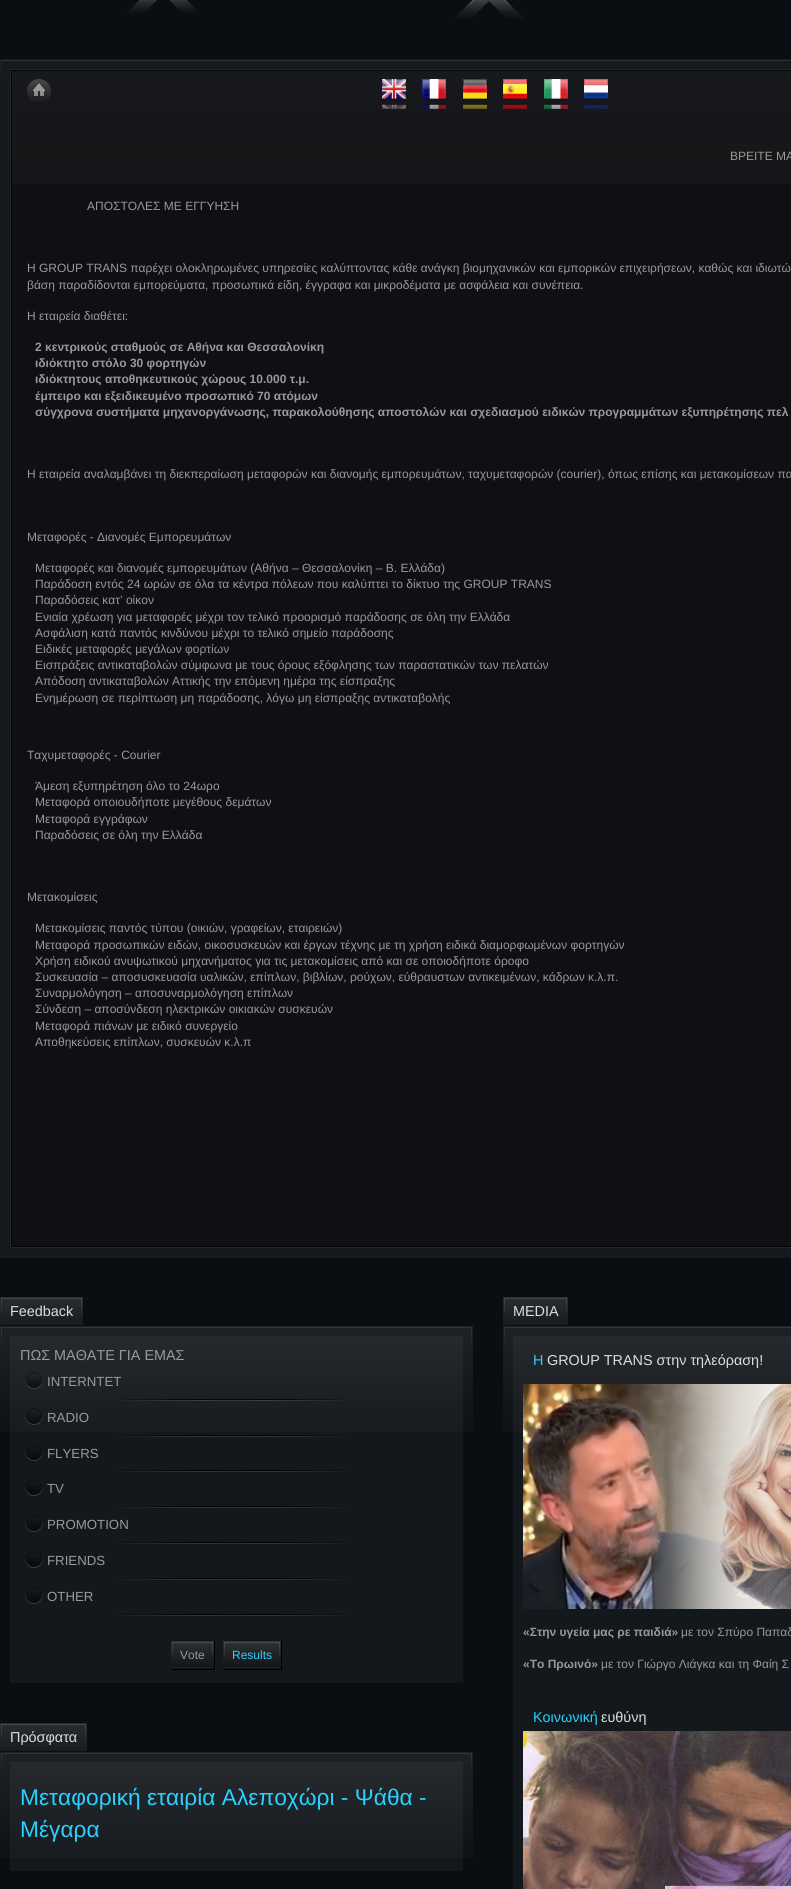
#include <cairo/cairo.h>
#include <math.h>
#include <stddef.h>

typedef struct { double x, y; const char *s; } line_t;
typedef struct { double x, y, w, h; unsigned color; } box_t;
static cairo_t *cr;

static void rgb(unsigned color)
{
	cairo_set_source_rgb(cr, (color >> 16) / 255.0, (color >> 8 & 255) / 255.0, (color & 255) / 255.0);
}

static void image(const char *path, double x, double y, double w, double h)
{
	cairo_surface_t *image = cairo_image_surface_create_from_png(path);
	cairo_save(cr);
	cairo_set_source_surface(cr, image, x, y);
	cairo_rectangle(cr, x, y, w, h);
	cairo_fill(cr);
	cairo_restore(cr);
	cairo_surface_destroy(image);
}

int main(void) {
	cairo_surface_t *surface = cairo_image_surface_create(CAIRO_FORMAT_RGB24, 791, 1889);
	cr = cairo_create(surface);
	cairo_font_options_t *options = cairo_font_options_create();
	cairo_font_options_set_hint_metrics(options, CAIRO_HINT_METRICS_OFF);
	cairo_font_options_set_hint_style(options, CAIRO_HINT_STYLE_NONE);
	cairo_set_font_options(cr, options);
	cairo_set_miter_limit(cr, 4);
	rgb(0x090e13);
	cairo_paint(cr);
	{
		static const box_t items[] = {
			{513, 1336, 278, 553, 0x13181c},
			{10, 1762, 453, 109, 0x13181c},
			{10, 1336, 453, 347, 0x13181c},
		};
		for (size_t i = 0; i < sizeof items / sizeof *items; i++) {
			rgb(items[i].color);
			cairo_rectangle(cr, items[i].x, items[i].y, items[i].w, items[i].h);
			cairo_fill(cr);
		}
	}
	image("img/1.png", 127, 0, 72, 13);
	image("img/2.png", 454, 0, 70, 19);
	image("img/3.png", 12, 59, 779, 20);
	image("img/4.png", 0, 59, 12, 20);
	rgb(0x0e1013);
	cairo_rectangle(cr, 12, 79, 779, 1167);
	cairo_fill(cr);
	image("img/5.png", 0, 79, 12, 1167);
	image("img/6.png", 12, 79, 779, 105);
	image("img/7.png", 27, 79, 24, 23);
	image("img/8.png", 382, 79, 24, 30);
	image("img/9.png", 422, 79, 24, 30);
	image("img/10.png", 463, 79, 24, 30);
	image("img/11.png", 503, 79, 24, 30);
	image("img/12.png", 544, 79, 24, 30);
	image("img/13.png", 584, 79, 24, 30);
	image("img/14.png", 12, 1246, 779, 12);
	image("img/15.png", 0, 1246, 12, 12);
	image("img/16.png", 10, 1297, 63, 28);
	image("img/17.png", 0, 1297, 10, 28);
	image("img/18.png", 73, 1297, 10, 28);
	image("img/19.png", 10, 1326, 453, 106);
	image("img/20.png", 0, 1326, 10, 106);
	image("img/21.png", 463, 1326, 10, 106);
	image("img/22.png", 118, 1399, 228, 2);
	image("img/23.png", 25, 1372, 18, 17);
	image("img/24.png", 118, 1435, 228, 2);
	image("img/25.png", 25, 1408, 18, 17);
	image("img/24.png", 118, 1470, 228, 2);
	image("img/26.png", 25, 1444, 18, 17);
	image("img/24.png", 118, 1506, 228, 2);
	image("img/26.png", 25, 1479, 18, 17);
	image("img/24.png", 118, 1542, 228, 2);
	image("img/26.png", 25, 1515, 18, 17);
	image("img/24.png", 118, 1578, 228, 2);
	image("img/26.png", 25, 1551, 18, 17);
	image("img/24.png", 118, 1614, 228, 2);
	image("img/26.png", 25, 1587, 18, 17);
	image("img/27.png", 171, 1641, 7, 29);
	image("img/28.png", 178, 1641, 30, 29);
	image("img/29.png", 208, 1641, 7, 29);
	image("img/27.png", 223, 1641, 7, 29);
	image("img/30.png", 230, 1641, 45, 29);
	image("img/29.png", 275, 1641, 7, 29);
	image("img/31.png", 10, 1723, 67, 28);
	image("img/17.png", 0, 1723, 10, 28);
	image("img/18.png", 77, 1723, 10, 28);
	image("img/19.png", 10, 1752, 453, 106);
	image("img/20.png", 0, 1752, 10, 106);
	image("img/21.png", 463, 1752, 10, 106);
	image("img/32.png", 513, 1297, 45, 28);
	image("img/17.png", 503, 1297, 10, 28);
	image("img/18.png", 558, 1297, 10, 28);
	image("img/33.png", 513, 1326, 278, 106);
	image("img/34.png", 503, 1326, 10, 106);
	image("img/35.png", 523, 1384, 268, 225);
	image("img/36.png", 523, 1731, 268, 158);
	cairo_select_font_face(cr, "Liberation Sans", CAIRO_FONT_SLANT_NORMAL, CAIRO_FONT_WEIGHT_NORMAL);
	cairo_set_font_size(cr, 12);
	rgb(0x999999);
	{
		static const line_t items[] = {
			{730, 160, "ΒΡΕΙΤΕ ΜΑ"},
			{87, 210, "ΑΠΟΣΤΟΛΕΣ ΜΕ ΕΓΓΥΗΣΗ"},
			{27, 272, "Η GROUP TRANS παρέχει ολοκληρωμένες υπηρεσίες καλύπτοντας κάθε ανάγκη βιομηχανικών και εμπορικών επιχειρήσεων, καθώς και ιδιωτώ"},
			{27, 289, "βάση παραδίδονται εμπορεύματα, προσωπικά είδη, έγγραφα και μικροδέματα με ασφάλεια και συνέπεια."},
			{27, 320, "Η εταιρεία διαθέτει:"},
		};
		for (size_t i = 0; i < sizeof items / sizeof *items; i++) {
			cairo_move_to(cr, items[i].x, items[i].y);
			cairo_show_text(cr, items[i].s);
		}
	}
	cairo_select_font_face(cr, "Liberation Sans", CAIRO_FONT_SLANT_NORMAL, CAIRO_FONT_WEIGHT_BOLD);
	{
		static const line_t items[] = {
			{35, 351, "2 κεντρικούς σταθμούς σε Αθήνα και Θεσσαλονίκη"},
			{35, 367, "ιδιόκτητο στόλο 30 φορτηγών"},
			{35, 383, "ιδιόκτητους αποθηκευτικούς χώρους 10.000 τ.μ."},
			{35, 400, "έμπειρο και εξειδικευμένο προσωπικό 70 ατόμων"},
			{35, 416, "σύγχρονα συστήματα μηχανοργάνωσης, παρακολούθησης αποστολών και σχεδιασμού ειδικών προγραμμάτων εξυπηρέτησης πελ"},
		};
		for (size_t i = 0; i < sizeof items / sizeof *items; i++) {
			cairo_move_to(cr, items[i].x, items[i].y);
			cairo_show_text(cr, items[i].s);
		}
	}
	cairo_select_font_face(cr, "Liberation Sans", CAIRO_FONT_SLANT_NORMAL, CAIRO_FONT_WEIGHT_NORMAL);
	{
		static const line_t items[] = {
			{27, 478, "Η εταιρεία αναλαμβάνει τη διεκπεραίωση μεταφορών και διανομής εμπορευμάτων, ταχυμεταφορών (courier), όπως επίσης και μετακομίσεων πα"},
			{27, 541, "Μεταφορές - Διανομές Εμπορευμάτων"},
			{35, 572, "Μεταφορές και διανομές εμπορευμάτων (Αθήνα – Θεσσαλονίκη – Β. Ελλάδα)"},
			{35, 588, "Παράδοση εντός 24 ωρών σε όλα τα κέντρα πόλεων που καλύπτει το δίκτυο της GROUP TRANS"},
			{35, 604, "Παραδόσεις κατ’ οίκον"},
			{35, 621, "Ενιαία χρέωση για μεταφορές μέχρι τον τελικό προορισμό παράδοσης σε όλη την Ελλάδα"},
			{35, 637, "Ασφάλιση κατά παντός κινδύνου μέχρι το τελικό σημείο παράδοσης"},
			{35, 653, "Ειδικές μεταφορές μεγάλων φορτίων"},
			{35, 669, "Εισπράξεις αντικαταβολών σύμφωνα με τους όρους εξόφλησης των παραστατικών των πελατών"},
			{35, 685, "Απόδοση αντικαταβολών Αττικής την επόμενη ημέρα της είσπραξης"},
			{35, 702, "Ενημέρωση σε περίπτωση μη παράδοσης, λόγω μη είσπραξης αντικαταβολής"},
			{27, 759, "Ταχυμεταφορές - Courier"},
			{35, 790, "Άμεση εξυπηρέτηση όλο το 24ωρο"},
			{35, 806, "Μεταφορά οποιουδήποτε μεγέθους δεμάτων"},
			{35, 823, "Μεταφορά εγγράφων"},
			{35, 839, "Παραδόσεις σε όλη την Ελλάδα"},
			{27, 901, "Μετακομίσεις"},
			{35, 932, "Μετακομίσεις παντός τύπου (οικιών, γραφείων, εταιρειών)"},
			{35, 949, "Μεταφορά προσωπικών ειδών, οικοσυσκευών και έργων τέχνης με τη χρήση ειδικά διαμορφωμένων φορτηγών"},
			{35, 965, "Χρήση ειδικού ανυψωτικού μηχανήματος για τις μετακομίσεις από και σε οποιοδήποτε όροφο"},
			{35, 981, "Συσκευασία – αποσυσκευασία υαλικών, επίπλων, βιβλίων, ρούχων, εύθραυστων αντικειμένων, κάδρων κ.λ.π."},
			{35, 997, "Συναρμολόγηση – αποσυναρμολόγηση επίπλων"},
			{35, 1013, "Σύνδεση – αποσύνδεση ηλεκτρικών οικιακών συσκευών"},
			{35, 1030, "Μεταφορά πιάνων με ειδικό συνεργείο"},
			{35, 1046, "Αποθηκεύσεις επίπλων, συσκευών κ.λ.π"},
		};
		for (size_t i = 0; i < sizeof items / sizeof *items; i++) {
			cairo_move_to(cr, items[i].x, items[i].y);
			cairo_show_text(cr, items[i].s);
		}
	}
	cairo_set_font_size(cr, 14.4);
	rgb(0xdddddd);
	cairo_move_to(cr, 10, 1316);
	cairo_show_text(cr, "Feedback");
	rgb(0x999999);
	cairo_move_to(cr, 20, 1360);
	cairo_show_text(cr, "ΠΩΣ ΜΑΘΑΤΕ ΓΙΑ ΕΜΑΣ");
	cairo_set_font_size(cr, 13.25);
	{
		static const line_t items[] = {
			{47, 1386, "INTERNTET"},
			{47, 1422, "RADIO"},
			{47, 1458, "FLYERS"},
			{47, 1493, "TV"},
			{47, 1529, "PROMOTION"},
			{47, 1565, "FRIENDS"},
			{47, 1601, "OTHER"},
		};
		for (size_t i = 0; i < sizeof items / sizeof *items; i++) {
			cairo_move_to(cr, items[i].x, items[i].y);
			cairo_show_text(cr, items[i].s);
		}
	}
	cairo_set_font_size(cr, 12);
	cairo_move_to(cr, 180, 1659);
	cairo_show_text(cr, "Vote");
	rgb(0x29d1ff);
	cairo_move_to(cr, 232, 1659);
	cairo_show_text(cr, "Results");
	cairo_set_font_size(cr, 14.4);
	rgb(0xdddddd);
	cairo_move_to(cr, 10, 1742);
	cairo_show_text(cr, "Πρόσφατα");
	cairo_set_font_size(cr, 22.75);
	rgb(0x29d1ff);
	cairo_move_to(cr, 20, 1805);
	cairo_show_text(cr, "Μεταφορική εταιρία Αλεποχώρι - Ψάθα -");
	cairo_move_to(cr, 20, 1837);
	cairo_show_text(cr, "Μέγαρα");
	cairo_set_font_size(cr, 14.4);
	rgb(0xdddddd);
	cairo_move_to(cr, 513, 1316);
	cairo_show_text(cr, "MEDIA");
	rgb(0x29d1ff);
	cairo_move_to(cr, 533, 1365);
	cairo_show_text(cr, "Η");
	rgb(0xdddddd);
	cairo_move_to(cr, 547, 1365);
	cairo_show_text(cr, "GROUP TRANS στην τηλεόραση!");
	cairo_select_font_face(cr, "Liberation Sans", CAIRO_FONT_SLANT_NORMAL, CAIRO_FONT_WEIGHT_BOLD);
	cairo_set_font_size(cr, 12);
	rgb(0x999999);
	cairo_move_to(cr, 523, 1636);
	cairo_show_text(cr, "«Στην υγεία μας ρε παιδιά»");
	cairo_select_font_face(cr, "Liberation Sans", CAIRO_FONT_SLANT_NORMAL, CAIRO_FONT_WEIGHT_NORMAL);
	cairo_move_to(cr, 681, 1636);
	cairo_show_text(cr, "με τον Σπύρο Παπαδ");
	cairo_select_font_face(cr, "Liberation Sans", CAIRO_FONT_SLANT_NORMAL, CAIRO_FONT_WEIGHT_BOLD);
	cairo_move_to(cr, 523, 1668);
	cairo_show_text(cr, "«Το Πρωινό»");
	cairo_select_font_face(cr, "Liberation Sans", CAIRO_FONT_SLANT_NORMAL, CAIRO_FONT_WEIGHT_NORMAL);
	cairo_move_to(cr, 601, 1668);
	cairo_show_text(cr, "με τον Γιώργο Λιάγκα και τη Φαίη Σ");
	cairo_set_font_size(cr, 14.4);
	rgb(0x29d1ff);
	cairo_move_to(cr, 533, 1722);
	cairo_show_text(cr, "Κοινωνική");
	rgb(0xdddddd);
	cairo_move_to(cr, 601, 1722);
	cairo_show_text(cr, "ευθύνη");
	cairo_surface_write_to_png(surface, "page.png");
	cairo_font_options_destroy(options);
	cairo_destroy(cr);
	cairo_surface_destroy(surface);
	return 0;
}
